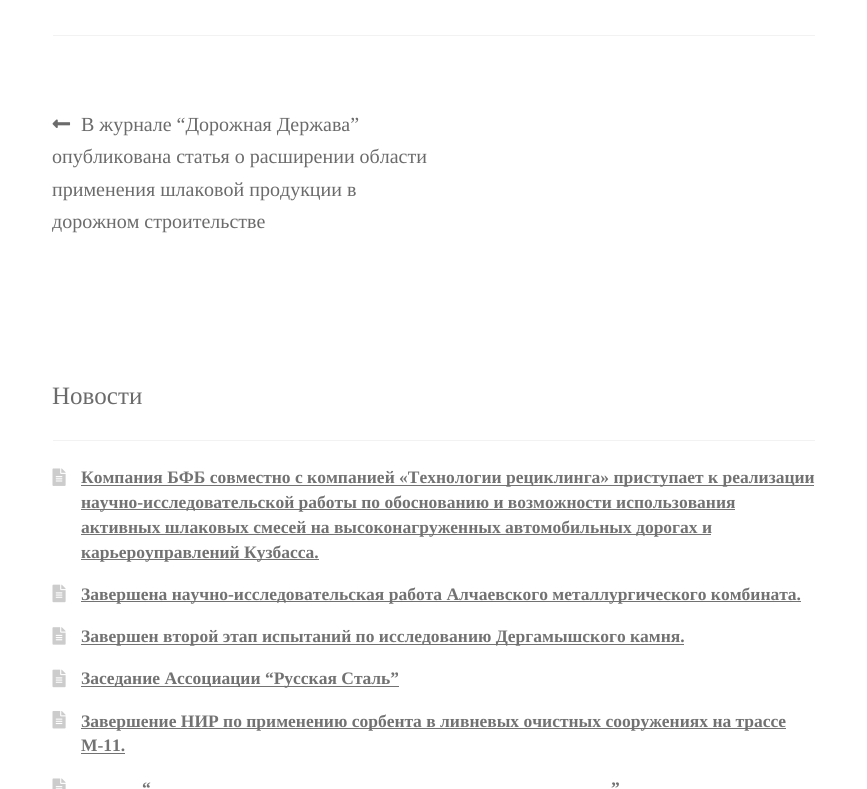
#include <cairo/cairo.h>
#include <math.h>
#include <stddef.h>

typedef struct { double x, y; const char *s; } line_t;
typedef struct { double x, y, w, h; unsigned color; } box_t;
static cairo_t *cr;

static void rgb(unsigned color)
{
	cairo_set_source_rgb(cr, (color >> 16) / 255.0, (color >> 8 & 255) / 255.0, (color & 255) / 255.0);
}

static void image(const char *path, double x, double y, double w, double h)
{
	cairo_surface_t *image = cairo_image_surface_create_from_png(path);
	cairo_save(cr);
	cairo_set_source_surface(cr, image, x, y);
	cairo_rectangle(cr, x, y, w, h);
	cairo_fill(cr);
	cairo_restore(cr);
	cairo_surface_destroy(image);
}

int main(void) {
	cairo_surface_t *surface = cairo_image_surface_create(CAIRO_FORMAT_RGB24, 867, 789);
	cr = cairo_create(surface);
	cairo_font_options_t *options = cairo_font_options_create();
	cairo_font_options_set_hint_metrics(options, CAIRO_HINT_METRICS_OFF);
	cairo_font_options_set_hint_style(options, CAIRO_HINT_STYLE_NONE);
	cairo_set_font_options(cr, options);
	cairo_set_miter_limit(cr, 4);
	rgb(0xffffff);
	cairo_paint(cr);
	rgb(0xf2f2f2);
	cairo_rectangle(cr, 53, 35, 762, 1);
	cairo_fill(cr);
	image("img/1.png", 52, 119, 19, 9);
	cairo_rectangle(cr, 53, 440, 762, 1);
	cairo_fill(cr);
	image("img/2.png", 52, 468, 14, 18);
	{
		static const box_t items[] = {
			{81, 485, 733, 1, 0x727272},
			{81, 509, 654, 1, 0x727272},
			{81, 534, 630, 1, 0x727272},
			{81, 559, 238, 1, 0x727272},
		};
		for (size_t i = 0; i < sizeof items / sizeof *items; i++) {
			rgb(items[i].color);
			cairo_rectangle(cr, items[i].x, items[i].y, items[i].w, items[i].h);
			cairo_fill(cr);
		}
	}
	image("img/3.png", 52, 584, 14, 19);
	cairo_rectangle(cr, 81, 601, 720, 1);
	cairo_fill(cr);
	image("img/4.png", 52, 627, 14, 18);
	cairo_rectangle(cr, 81, 644, 603, 1);
	cairo_fill(cr);
	image("img/3.png", 52, 669, 14, 19);
	cairo_rectangle(cr, 81, 686, 318, 1);
	cairo_fill(cr);
	image("img/5.png", 52, 711, 14, 18);
	cairo_rectangle(cr, 81, 728, 705, 1);
	cairo_fill(cr);
	cairo_rectangle(cr, 81, 753, 44, 1);
	cairo_fill(cr);
	image("img/6.png", 52, 778, 14, 11);
	cairo_select_font_face(cr, "Liberation Serif", CAIRO_FONT_SLANT_NORMAL, CAIRO_FONT_WEIGHT_NORMAL);
	cairo_set_font_size(cr, 20);
	rgb(0x6b6b6b);
	{
		static const line_t items[] = {
			{81, 131, "В журнале “Дорожная Держава”"},
			{52, 163, "опубликована статья о расширении области"},
			{52, 196, "применения шлаковой продукции в"},
			{52, 228, "дорожном строительстве"},
		};
		for (size_t i = 0; i < sizeof items / sizeof *items; i++) {
			cairo_move_to(cr, items[i].x, items[i].y);
			cairo_show_text(cr, items[i].s);
		}
	}
	cairo_set_font_size(cr, 25);
	cairo_move_to(cr, 52, 404);
	cairo_show_text(cr, "Новости");
	cairo_select_font_face(cr, "Liberation Serif", CAIRO_FONT_SLANT_NORMAL, CAIRO_FONT_WEIGHT_BOLD);
	cairo_set_font_size(cr, 17.5);
	rgb(0x727272);
	{
		static const line_t items[] = {
			{81, 483, "Компания БФБ совместно с компанией «Технологии рециклинга» приступает к реализации"},
			{81, 508, "научно-исследовательской работы по обоснованию и возможности использования"},
			{81, 533, "активных шлаковых смесей на высоконагруженных автомобильных дорогах и"},
			{81, 558, "карьероуправлений Кузбасса."},
			{81, 600, "Завершена научно-исследовательская работа Алчаевского металлургического комбината."},
			{81, 642, "Завершен второй этап испытаний по исследованию Дергамышского камня."},
			{81, 684, "Заседание Ассоциации “Русская Сталь”"},
			{81, 727, "Завершение НИР по применению сорбента в ливневых очистных сооружениях на трассе"},
			{81, 751, "М-11."},
			{142, 794, "“"},
			{611, 794, "”"},
		};
		for (size_t i = 0; i < sizeof items / sizeof *items; i++) {
			cairo_move_to(cr, items[i].x, items[i].y);
			cairo_show_text(cr, items[i].s);
		}
	}
	cairo_surface_write_to_png(surface, "page.png");
	cairo_font_options_destroy(options);
	cairo_destroy(cr);
	cairo_surface_destroy(surface);
	return 0;
}
